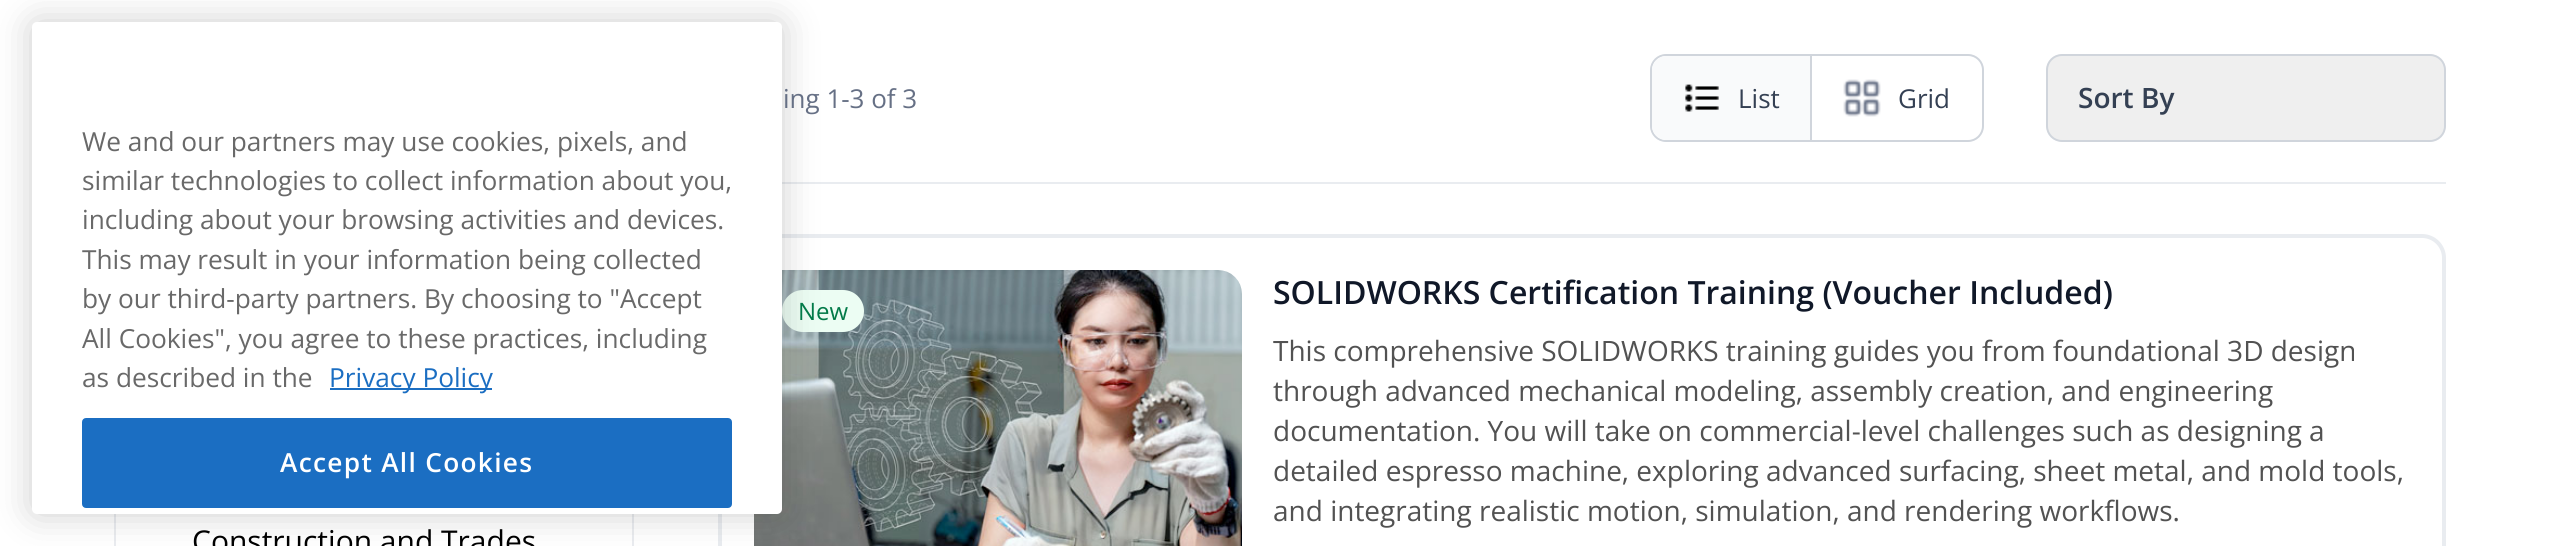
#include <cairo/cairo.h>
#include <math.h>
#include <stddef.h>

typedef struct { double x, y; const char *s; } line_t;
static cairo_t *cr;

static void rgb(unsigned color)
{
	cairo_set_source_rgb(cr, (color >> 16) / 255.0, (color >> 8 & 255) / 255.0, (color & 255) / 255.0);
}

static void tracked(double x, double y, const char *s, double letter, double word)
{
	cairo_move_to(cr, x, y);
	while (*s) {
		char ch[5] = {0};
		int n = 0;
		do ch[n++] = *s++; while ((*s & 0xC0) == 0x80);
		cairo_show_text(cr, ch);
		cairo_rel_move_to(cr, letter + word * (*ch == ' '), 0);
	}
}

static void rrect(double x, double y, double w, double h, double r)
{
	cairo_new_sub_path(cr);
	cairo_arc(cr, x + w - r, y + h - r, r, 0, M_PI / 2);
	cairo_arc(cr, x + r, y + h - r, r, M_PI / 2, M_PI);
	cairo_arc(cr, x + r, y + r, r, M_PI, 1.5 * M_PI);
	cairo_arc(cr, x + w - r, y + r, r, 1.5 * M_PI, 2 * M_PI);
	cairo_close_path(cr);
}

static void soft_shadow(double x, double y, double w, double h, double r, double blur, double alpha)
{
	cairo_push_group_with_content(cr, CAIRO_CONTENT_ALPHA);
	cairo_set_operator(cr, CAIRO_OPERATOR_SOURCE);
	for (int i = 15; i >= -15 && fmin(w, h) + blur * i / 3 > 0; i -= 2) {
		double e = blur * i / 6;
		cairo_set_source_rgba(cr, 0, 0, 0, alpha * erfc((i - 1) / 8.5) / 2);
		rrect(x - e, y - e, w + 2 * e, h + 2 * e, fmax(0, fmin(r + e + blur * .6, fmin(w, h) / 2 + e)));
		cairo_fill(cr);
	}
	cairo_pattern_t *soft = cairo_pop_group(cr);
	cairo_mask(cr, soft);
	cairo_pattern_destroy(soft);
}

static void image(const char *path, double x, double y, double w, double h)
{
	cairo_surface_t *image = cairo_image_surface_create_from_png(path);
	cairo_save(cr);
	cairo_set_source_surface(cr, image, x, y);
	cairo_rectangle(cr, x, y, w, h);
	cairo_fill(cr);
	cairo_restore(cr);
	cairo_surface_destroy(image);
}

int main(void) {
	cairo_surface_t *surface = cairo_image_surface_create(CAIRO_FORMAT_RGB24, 2564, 546);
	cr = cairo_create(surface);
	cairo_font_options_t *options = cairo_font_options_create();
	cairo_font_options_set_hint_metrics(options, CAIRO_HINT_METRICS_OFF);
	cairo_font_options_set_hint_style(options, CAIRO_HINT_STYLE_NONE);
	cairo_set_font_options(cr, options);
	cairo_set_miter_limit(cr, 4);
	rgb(0xffffff);
	cairo_paint(cr);
	rgb(0xe9ecf0);
	cairo_rectangle(cr, 782, 182, 1664, 2);
	cairo_fill(cr);
	rrect(1651, 55, 332, 86, 15);
	rgb(0xd0d5dc);
	cairo_stroke(cr);
	rgb(0xf9fafb);
	cairo_new_path(cr);
	cairo_move_to(cr, 1666, 56);
	cairo_line_to(cr, 1812, 56);
	cairo_line_to(cr, 1812, 140);
	cairo_line_to(cr, 1666, 140);
	cairo_curve_to(cr, 1658.5, 140, 1652, 133.5, 1652, 126);
	cairo_line_to(cr, 1652, 70);
	cairo_curve_to(cr, 1652, 62.5, 1658.5, 56, 1666, 56);
	cairo_close_path(cr);
	cairo_fill(cr);
	rgb(0xd0d5dc);
	cairo_rectangle(cr, 1810, 56, 2, 84);
	cairo_fill(cr);
	image("img/1.png", 1685, 84, 34, 28);
	image("img/2.png", 1843, 79, 38, 38);
	rgb(0xefefef);
	rrect(2047, 55, 398, 86, 15);
	cairo_fill_preserve(cr);
	rgb(0xd0d5dc);
	cairo_stroke(cr);
	rrect(720, 236, 1724, 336, 22);
	rgb(0xe9ecf0);
	cairo_set_line_width(cr, 4);
	cairo_stroke(cr);
	image("img/3.png", 754, 270, 488, 276);
	rgb(0xecfdf3);
	rrect(782, 290, 82, 42, 21);
	cairo_fill(cr);
	cairo_rectangle(cr, 115, 45, 518, 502);
	rgb(0xeaecf0);
	cairo_set_line_width(cr, 2);
	cairo_stroke(cr);
	rgb(0x000000);
	soft_shadow(32, 22, 750, 492, 5, 18, 0.2);
	rgb(0xffffff);
	rrect(32, 22, 750, 492, 5);
	cairo_fill(cr);
	rgb(0x1b6ec2);
	cairo_rectangle(cr, 330, 388, 162, 2);
	cairo_fill(cr);
	rrect(83, 419, 648, 88, 3);
	cairo_fill_preserve(cr);
	cairo_stroke(cr);
	cairo_select_font_face(cr, "Open Sans", CAIRO_FONT_SLANT_NORMAL, CAIRO_FONT_WEIGHT_NORMAL);
	cairo_set_font_size(cr, 26);
	rgb(0x667085);
	cairo_move_to(cr, 783, 108);
	cairo_show_text(cr, "ing 1-3 of 3");
	rgb(0x344053);
	cairo_move_to(cr, 1738, 108);
	cairo_show_text(cr, "List");
	cairo_move_to(cr, 1898, 108);
	cairo_show_text(cr, "Grid");
	cairo_select_font_face(cr, "Open Sans SemiBold", CAIRO_FONT_SLANT_NORMAL, CAIRO_FONT_WEIGHT_NORMAL);
	cairo_set_font_size(cr, 28);
	cairo_move_to(cr, 2078, 108);
	cairo_show_text(cr, "Sort By");
	cairo_select_font_face(cr, "Open Sans", CAIRO_FONT_SLANT_NORMAL, CAIRO_FONT_WEIGHT_NORMAL);
	cairo_set_font_size(cr, 24);
	rgb(0x027a48);
	cairo_move_to(cr, 798, 320);
	cairo_show_text(cr, "New");
	cairo_select_font_face(cr, "Open Sans SemiBold", CAIRO_FONT_SLANT_NORMAL, CAIRO_FONT_WEIGHT_NORMAL);
	cairo_set_font_size(cr, 32);
	rgb(0x101828);
	cairo_move_to(cr, 1273, 304);
	cairo_show_text(cr, "SOLIDWORKS Certification Training (Voucher Included)");
	cairo_select_font_face(cr, "Open Sans", CAIRO_FONT_SLANT_NORMAL, CAIRO_FONT_WEIGHT_NORMAL);
	cairo_set_font_size(cr, 28);
	rgb(0x525252);
	{
		static const line_t items[] = {
			{1273, 361, "This comprehensive SOLIDWORKS training guides you from foundational 3D design"},
			{1273, 401, "through advanced mechanical modeling, assembly creation, and engineering"},
			{1273, 441, "documentation. You will take on commercial-level challenges such as designing a"},
			{1273, 481, "detailed espresso machine, exploring advanced surfacing, sheet metal, and mold tools,"},
			{1273, 521, "and integrating realistic motion, simulation, and rendering workflows."},
		};
		for (size_t i = 0; i < sizeof items / sizeof *items; i++) {
			cairo_move_to(cr, items[i].x, items[i].y);
			cairo_show_text(cr, items[i].s);
		}
	}
	cairo_set_font_size(cr, 30);
	rgb(0x000000);
	cairo_move_to(cr, 192, 552);
	cairo_show_text(cr, "Construction and Trades");
	cairo_set_font_size(cr, 26.25);
	rgb(0x696969);
	{
		static const line_t items[] = {
			{82, 151, "We and our partners may use cookies, pixels, and"},
			{82, 190, "similar technologies to collect information about you,"},
			{82, 229, "including about your browsing activities and devices."},
			{82, 269, "This may result in your information being collected"},
			{82, 308, "by our third-party partners. By choosing to \"Accept"},
			{82, 348, "All Cookies\", you agree to these practices, including"},
			{82, 387, "as described in the"},
		};
		for (size_t i = 0; i < sizeof items / sizeof *items; i++) {
			cairo_move_to(cr, items[i].x, items[i].y);
			cairo_show_text(cr, items[i].s);
		}
	}
	rgb(0x1b6ec2);
	cairo_move_to(cr, 329, 387);
	cairo_show_text(cr, "Privacy Policy");
	cairo_select_font_face(cr, "Open Sans SemiBold", CAIRO_FONT_SLANT_NORMAL, CAIRO_FONT_WEIGHT_NORMAL);
	rgb(0xffffff);
	tracked(280, 472, "Accept All Cookies", 1.3, 0);
	cairo_surface_write_to_png(surface, "page.png");
	cairo_font_options_destroy(options);
	cairo_destroy(cr);
	cairo_surface_destroy(surface);
	return 0;
}
